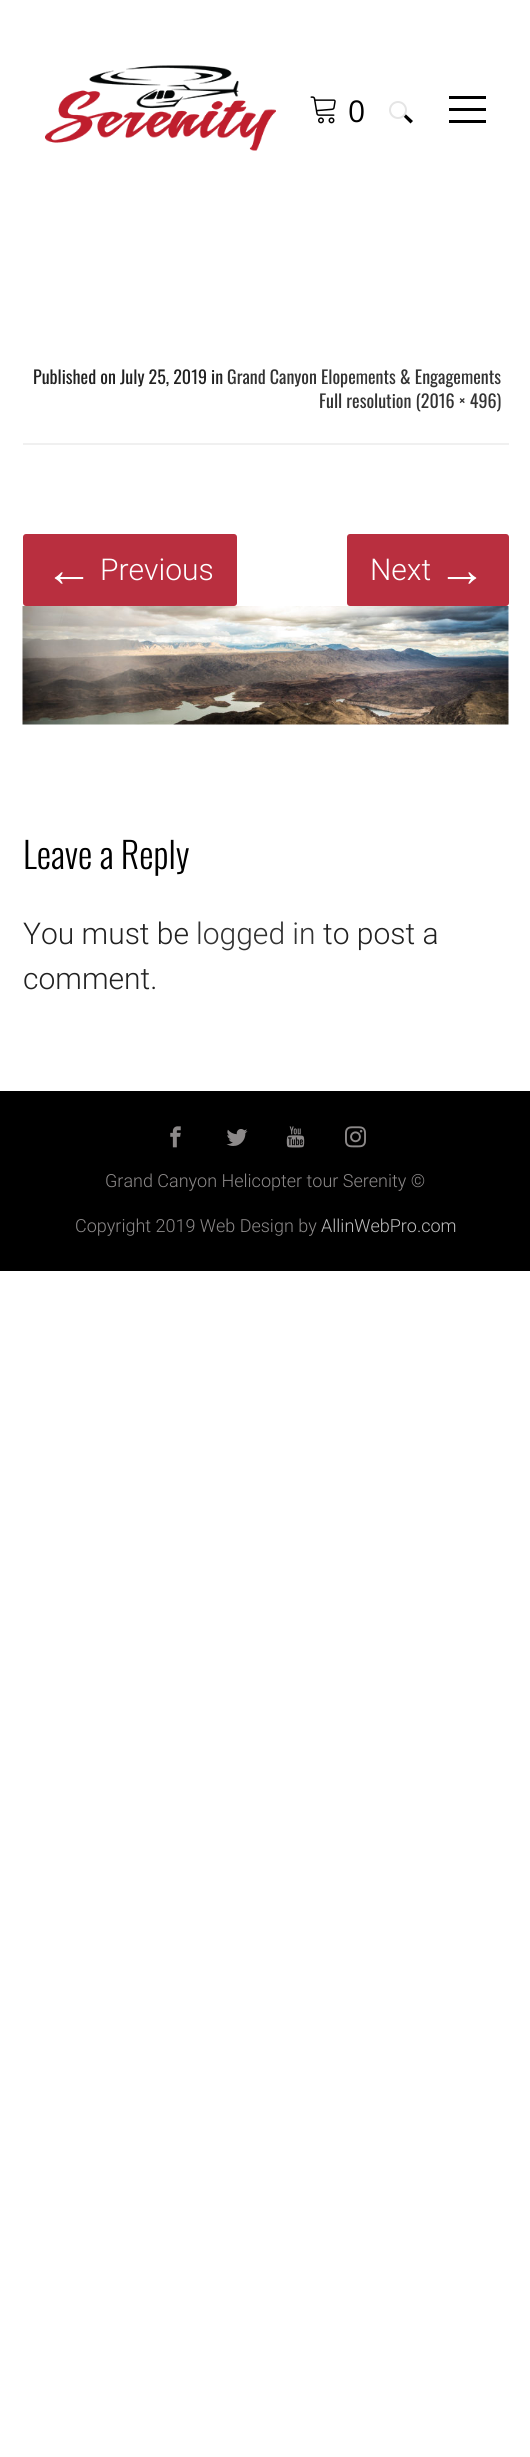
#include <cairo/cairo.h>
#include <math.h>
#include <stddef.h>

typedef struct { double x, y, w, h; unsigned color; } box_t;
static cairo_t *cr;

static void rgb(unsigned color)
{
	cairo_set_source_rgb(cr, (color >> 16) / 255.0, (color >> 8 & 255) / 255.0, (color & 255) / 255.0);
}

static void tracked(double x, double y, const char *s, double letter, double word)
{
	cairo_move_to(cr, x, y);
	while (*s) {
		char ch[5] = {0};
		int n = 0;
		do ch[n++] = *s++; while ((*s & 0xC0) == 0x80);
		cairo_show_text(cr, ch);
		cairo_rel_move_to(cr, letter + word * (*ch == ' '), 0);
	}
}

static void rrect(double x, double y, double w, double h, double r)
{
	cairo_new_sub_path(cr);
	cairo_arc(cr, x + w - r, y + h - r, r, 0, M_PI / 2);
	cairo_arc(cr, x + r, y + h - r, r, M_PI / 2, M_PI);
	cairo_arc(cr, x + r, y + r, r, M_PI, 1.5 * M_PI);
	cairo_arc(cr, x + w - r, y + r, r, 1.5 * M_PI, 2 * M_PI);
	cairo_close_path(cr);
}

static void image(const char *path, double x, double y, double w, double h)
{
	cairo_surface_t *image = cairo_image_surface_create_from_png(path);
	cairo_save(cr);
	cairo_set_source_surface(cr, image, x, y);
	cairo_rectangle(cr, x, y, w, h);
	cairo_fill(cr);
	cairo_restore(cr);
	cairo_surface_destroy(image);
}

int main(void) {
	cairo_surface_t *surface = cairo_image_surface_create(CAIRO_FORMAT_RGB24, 530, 2457);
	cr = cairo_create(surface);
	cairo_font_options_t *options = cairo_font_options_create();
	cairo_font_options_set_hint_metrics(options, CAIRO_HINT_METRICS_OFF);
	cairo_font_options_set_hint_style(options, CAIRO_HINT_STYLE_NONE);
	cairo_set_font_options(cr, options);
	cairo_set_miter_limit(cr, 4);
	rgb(0xffffff);
	cairo_paint(cr);
	image("img/1.png", 45, 65, 231, 86);
	image("img/2.png", 310, 96, 26, 28);
	rgb(0x000000);
	cairo_new_path(cr);
	cairo_move_to(cr, 403, 116);
	cairo_line_to(cr, 405.5, 114);
	cairo_line_to(cr, 413, 121);
	cairo_line_to(cr, 410.5, 123.5);
	cairo_close_path(cr);
	cairo_fill(cr);
	cairo_arc(cr, 398, 110, 8, 0, 2 * M_PI);
	rgb(0xe5e5e5);
	cairo_stroke(cr);
	{
		static const box_t items[] = {
			{449, 96, 37, 3, 0x000000},
			{449, 108, 37, 3, 0x000000},
			{449, 120, 37, 3, 0x000000},
			{23, 443, 486, 2, 0xf0f0f0},
		};
		for (size_t i = 0; i < sizeof items / sizeof *items; i++) {
			rgb(items[i].color);
			cairo_rectangle(cr, items[i].x, items[i].y, items[i].w, items[i].h);
			cairo_fill(cr);
		}
	}
	rgb(0xb92f3f);
	rrect(23, 534, 214, 72, 3);
	cairo_fill(cr);
	rrect(347, 534, 162, 72, 3);
	cairo_fill(cr);
	image("img/3.png", 22, 606, 487, 119);
	rgb(0x000000);
	cairo_rectangle(cr, 0, 1091, 530, 180);
	cairo_fill(cr);
	image("img/4.png", 170, 1126, 11, 22);
	image("img/5.png", 226, 1129, 22, 17);
	image("img/6.png", 286, 1126, 19, 22);
	image("img/7.png", 345, 1126, 21, 22);
	cairo_select_font_face(cr, "Open Sans", CAIRO_FONT_SLANT_NORMAL, CAIRO_FONT_WEIGHT_NORMAL);
	cairo_set_font_size(cr, 30);
	tracked(348, 122, "0", 1, 0);
	cairo_select_font_face(cr, "Oswald", CAIRO_FONT_SLANT_NORMAL, CAIRO_FONT_WEIGHT_NORMAL);
	cairo_set_font_size(cr, 18);
	rgb(0x212121);
	cairo_move_to(cr, 33, 384);
	cairo_show_text(cr, "Published on July 25, 2019 in");
	rgb(0x333333);
	cairo_move_to(cr, 227, 384);
	cairo_show_text(cr, "Grand Canyon Elopements & Engagements");
	cairo_move_to(cr, 319, 408);
	cairo_show_text(cr, "Full resolution (2016 × 496)");
	cairo_select_font_face(cr, "Liberation Serif", CAIRO_FONT_SLANT_NORMAL, CAIRO_FONT_WEIGHT_NORMAL);
	cairo_set_font_size(cr, 48);
	rgb(0xffffff);
	cairo_move_to(cr, 45, 586);
	cairo_show_text(cr, "←");
	cairo_select_font_face(cr, "Roboto Light", CAIRO_FONT_SLANT_NORMAL, CAIRO_FONT_WEIGHT_NORMAL);
	cairo_set_font_size(cr, 30);
	cairo_move_to(cr, 100, 580);
	cairo_show_text(cr, "Previous");
	cairo_move_to(cr, 370, 580);
	cairo_show_text(cr, "Next");
	cairo_select_font_face(cr, "Liberation Serif", CAIRO_FONT_SLANT_NORMAL, CAIRO_FONT_WEIGHT_NORMAL);
	cairo_set_font_size(cr, 48);
	cairo_move_to(cr, 438, 586);
	cairo_show_text(cr, "→");
	cairo_select_font_face(cr, "Oswald Light", CAIRO_FONT_SLANT_NORMAL, CAIRO_FONT_WEIGHT_NORMAL);
	cairo_set_font_size(cr, 36);
	rgb(0x000000);
	cairo_move_to(cr, 23, 869);
	cairo_show_text(cr, "Leave a Reply");
	cairo_select_font_face(cr, "Roboto Light", CAIRO_FONT_SLANT_NORMAL, CAIRO_FONT_WEIGHT_NORMAL);
	cairo_set_font_size(cr, 30);
	rgb(0x212121);
	cairo_move_to(cr, 23, 944);
	cairo_show_text(cr, "You must be");
	rgb(0x333333);
	cairo_move_to(cr, 196, 944);
	cairo_show_text(cr, "logged in");
	rgb(0x212121);
	cairo_move_to(cr, 323, 944);
	cairo_show_text(cr, "to post a");
	cairo_move_to(cr, 23, 989);
	cairo_show_text(cr, "comment.");
	cairo_set_font_size(cr, 18);
	rgb(0x8c8989);
	cairo_move_to(cr, 105, 1187);
	cairo_show_text(cr, "Grand Canyon Helicopter tour Serenity ©");
	cairo_move_to(cr, 75, 1232);
	cairo_show_text(cr, "Copyright 2019 Web Design by");
	rgb(0xbfbfbf);
	cairo_move_to(cr, 321, 1232);
	cairo_show_text(cr, "AllinWebPro.com");
	cairo_surface_write_to_png(surface, "page.png");
	cairo_font_options_destroy(options);
	cairo_destroy(cr);
	cairo_surface_destroy(surface);
	return 0;
}
